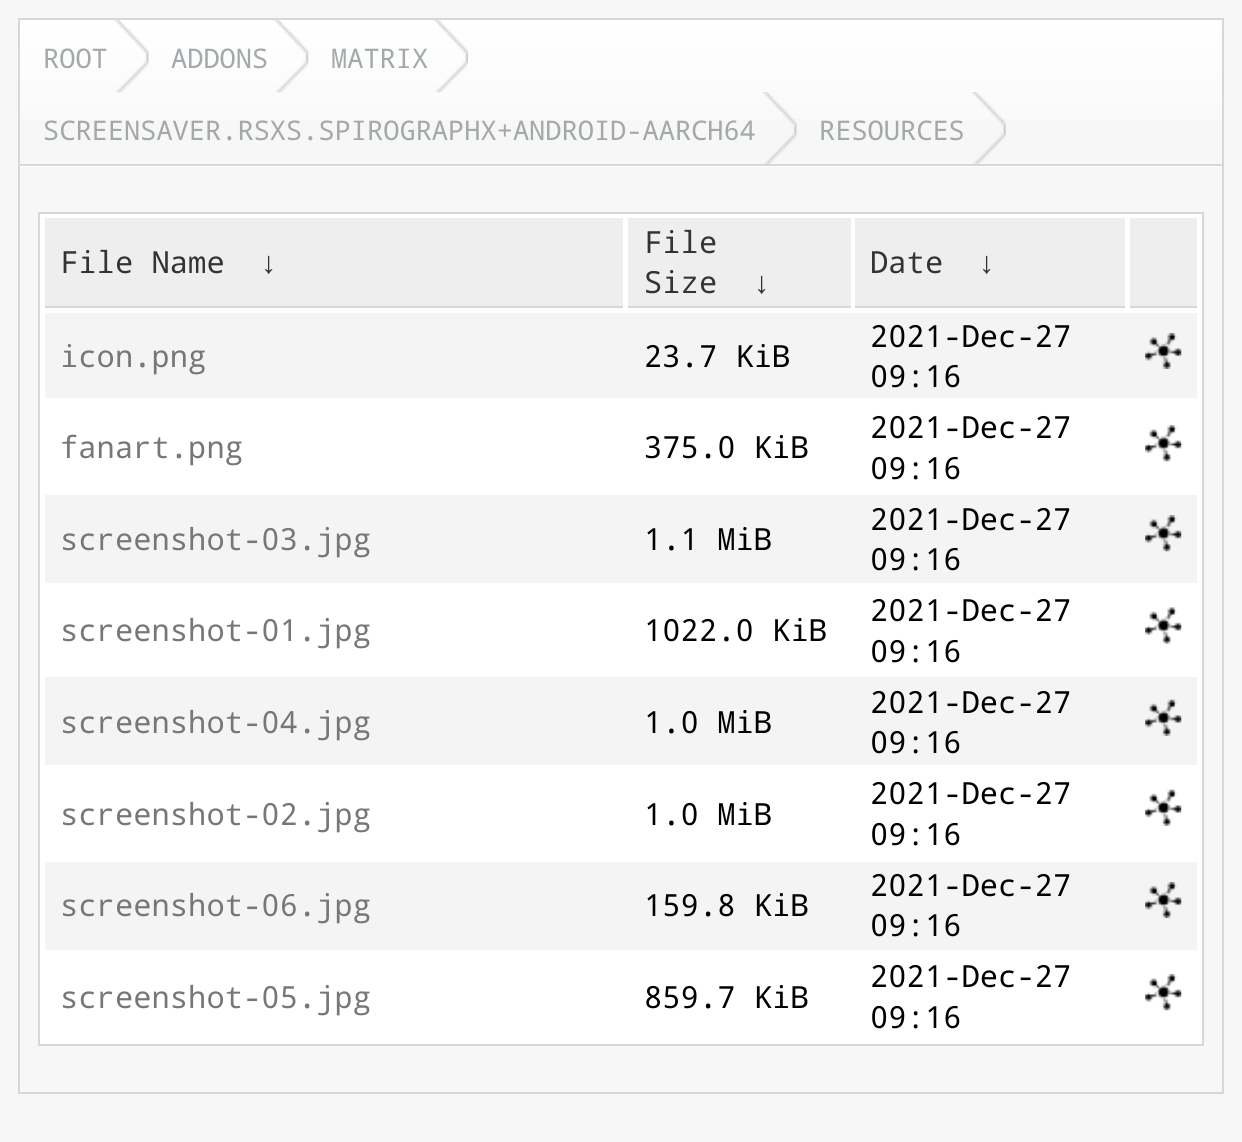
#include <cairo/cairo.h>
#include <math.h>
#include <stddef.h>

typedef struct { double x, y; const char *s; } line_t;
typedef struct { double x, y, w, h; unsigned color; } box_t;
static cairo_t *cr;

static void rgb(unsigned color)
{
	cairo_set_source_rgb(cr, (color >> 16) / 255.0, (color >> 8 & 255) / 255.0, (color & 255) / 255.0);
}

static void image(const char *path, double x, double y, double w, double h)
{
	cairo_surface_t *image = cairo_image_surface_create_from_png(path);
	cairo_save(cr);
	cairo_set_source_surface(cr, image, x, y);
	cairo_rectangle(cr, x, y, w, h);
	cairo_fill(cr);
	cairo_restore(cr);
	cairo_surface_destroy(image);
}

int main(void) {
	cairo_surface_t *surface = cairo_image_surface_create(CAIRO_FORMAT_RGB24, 1242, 1142);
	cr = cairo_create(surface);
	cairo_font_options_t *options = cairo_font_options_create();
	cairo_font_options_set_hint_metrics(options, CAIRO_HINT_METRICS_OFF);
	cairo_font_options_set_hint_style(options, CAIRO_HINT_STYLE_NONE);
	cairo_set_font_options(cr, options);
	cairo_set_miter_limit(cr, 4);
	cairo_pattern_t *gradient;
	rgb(0xf7f7f7);
	cairo_paint(cr);
	cairo_rectangle(cr, 19, 19, 1204, 1074);
	rgb(0xd9d6d6);
	cairo_stroke(cr);
	gradient = cairo_pattern_create_linear(621, 20, 621, 164);
	cairo_pattern_add_color_stop_rgba(gradient, 0, 1, 1, 1, 1);
	cairo_pattern_add_color_stop_rgba(gradient, 1, 0.969, 0.969, 0.969, 1);
	cairo_set_source(cr, gradient);
	cairo_pattern_destroy(gradient);
	cairo_rectangle(cr, 20, 20, 1202, 99);
	cairo_fill(cr);
	gradient = cairo_pattern_create_linear(621, 164, 621, 308);
	cairo_pattern_add_color_stop_rgba(gradient, 0, 1, 1, 1, 1);
	cairo_pattern_add_color_stop_rgba(gradient, 1, 0.969, 0.969, 0.969, 1);
	cairo_set_source(cr, gradient);
	cairo_pattern_destroy(gradient);
	cairo_rectangle(cr, 20, 166, 1202, 1);
	cairo_fill(cr);
	rgb(0xd9d6d6);
	cairo_rectangle(cr, 20, 164, 1202, 2);
	cairo_fill(cr);
	image("img/1.png", 114, 20, 35, 73);
	image("img/2.png", 274, 20, 35, 73);
	image("img/3.png", 434, 20, 34, 73);
	image("img/4.png", 762, 92, 35, 72);
	image("img/5.png", 971, 92, 35, 72);
	rgb(0xffffff);
	cairo_rectangle(cr, 39, 213, 1164, 832);
	cairo_fill_preserve(cr);
	rgb(0xd9d6d6);
	cairo_stroke(cr);
	{
		static const box_t items[] = {
			{45, 218, 578, 88, 0xeeeeee},
			{45, 306, 578, 2, 0xd9d6d6},
			{628, 218, 223, 88, 0xeeeeee},
			{628, 306, 223, 2, 0xd9d6d6},
			{855, 218, 270, 88, 0xeeeeee},
			{855, 306, 270, 2, 0xd9d6d6},
			{1130, 218, 67, 88, 0xeeeeee},
			{1130, 306, 67, 2, 0xd9d6d6},
			{45, 313, 1152, 85, 0xf4f4f4},
		};
		for (size_t i = 0; i < sizeof items / sizeof *items; i++) {
			rgb(items[i].color);
			cairo_rectangle(cr, items[i].x, items[i].y, items[i].w, items[i].h);
			cairo_fill(cr);
		}
	}
	image("img/6.png", 1145, 333, 37, 36);
	image("img/7.png", 1145, 425, 37, 37);
	cairo_rectangle(cr, 45, 495, 1152, 88);
	cairo_fill(cr);
	image("img/8.png", 1145, 515, 37, 37);
	image("img/9.png", 1145, 607, 37, 37);
	cairo_rectangle(cr, 45, 677, 1152, 88);
	cairo_fill(cr);
	image("img/10.png", 1145, 699, 37, 37);
	image("img/11.png", 1145, 789, 37, 37);
	cairo_rectangle(cr, 45, 862, 1152, 88);
	cairo_fill(cr);
	image("img/6.png", 1145, 882, 37, 36);
	image("img/7.png", 1145, 974, 37, 37);
	cairo_select_font_face(cr, "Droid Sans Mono", CAIRO_FONT_SLANT_NORMAL, CAIRO_FONT_WEIGHT_NORMAL);
	cairo_set_font_size(cr, 27);
	rgb(0xa3a9ab);
	{
		static const line_t items[] = {
			{43, 68, "ROOT"},
			{171, 68, "ADDONS"},
			{331, 68, "MATRIX"},
			{43, 140, "SCREENSAVER.RSXS.SPIROGRAPHX+ANDROID-AARCH64"},
			{819, 140, "RESOURCES"},
		};
		for (size_t i = 0; i < sizeof items / sizeof *items; i++) {
			cairo_move_to(cr, items[i].x, items[i].y);
			cairo_show_text(cr, items[i].s);
		}
	}
	cairo_set_font_size(cr, 30.5);
	rgb(0x333333);
	cairo_move_to(cr, 60, 273);
	cairo_show_text(cr, "File Name");
	cairo_select_font_face(cr, "Liberation Serif", CAIRO_FONT_SLANT_NORMAL, CAIRO_FONT_WEIGHT_NORMAL);
	cairo_move_to(cr, 261, 273);
	cairo_show_text(cr, "↓");
	cairo_select_font_face(cr, "Droid Sans Mono", CAIRO_FONT_SLANT_NORMAL, CAIRO_FONT_WEIGHT_NORMAL);
	cairo_move_to(cr, 644, 253);
	cairo_show_text(cr, "File");
	cairo_move_to(cr, 644, 293);
	cairo_show_text(cr, "Size");
	cairo_select_font_face(cr, "Liberation Serif", CAIRO_FONT_SLANT_NORMAL, CAIRO_FONT_WEIGHT_NORMAL);
	cairo_move_to(cr, 754, 293);
	cairo_show_text(cr, "↓");
	cairo_select_font_face(cr, "Droid Sans Mono", CAIRO_FONT_SLANT_NORMAL, CAIRO_FONT_WEIGHT_NORMAL);
	cairo_move_to(cr, 870, 273);
	cairo_show_text(cr, "Date");
	cairo_select_font_face(cr, "Liberation Serif", CAIRO_FONT_SLANT_NORMAL, CAIRO_FONT_WEIGHT_NORMAL);
	cairo_move_to(cr, 979, 273);
	cairo_show_text(cr, "↓");
	cairo_select_font_face(cr, "Droid Sans Mono", CAIRO_FONT_SLANT_NORMAL, CAIRO_FONT_WEIGHT_NORMAL);
	rgb(0x777777);
	cairo_move_to(cr, 60, 367);
	cairo_show_text(cr, "icon.png");
	rgb(0x000000);
	{
		static const line_t items[] = {
			{644, 367, "23.7 KiB"},
			{870, 347, "2021-Dec-27"},
			{870, 387, "09:16"},
		};
		for (size_t i = 0; i < sizeof items / sizeof *items; i++) {
			cairo_move_to(cr, items[i].x, items[i].y);
			cairo_show_text(cr, items[i].s);
		}
	}
	rgb(0x777777);
	cairo_move_to(cr, 60, 458);
	cairo_show_text(cr, "fanart.png");
	rgb(0x000000);
	{
		static const line_t items[] = {
			{644, 458, "375.0 KiB"},
			{870, 438, "2021-Dec-27"},
			{870, 479, "09:16"},
		};
		for (size_t i = 0; i < sizeof items / sizeof *items; i++) {
			cairo_move_to(cr, items[i].x, items[i].y);
			cairo_show_text(cr, items[i].s);
		}
	}
	rgb(0x777777);
	cairo_move_to(cr, 60, 550);
	cairo_show_text(cr, "screenshot-03.jpg");
	rgb(0x000000);
	{
		static const line_t items[] = {
			{644, 550, "1.1 MiB"},
			{870, 530, "2021-Dec-27"},
			{870, 570, "09:16"},
		};
		for (size_t i = 0; i < sizeof items / sizeof *items; i++) {
			cairo_move_to(cr, items[i].x, items[i].y);
			cairo_show_text(cr, items[i].s);
		}
	}
	rgb(0x777777);
	cairo_move_to(cr, 60, 641);
	cairo_show_text(cr, "screenshot-01.jpg");
	rgb(0x000000);
	{
		static const line_t items[] = {
			{644, 641, "1022.0 KiB"},
			{870, 621, "2021-Dec-27"},
			{870, 662, "09:16"},
		};
		for (size_t i = 0; i < sizeof items / sizeof *items; i++) {
			cairo_move_to(cr, items[i].x, items[i].y);
			cairo_show_text(cr, items[i].s);
		}
	}
	rgb(0x777777);
	cairo_move_to(cr, 60, 733);
	cairo_show_text(cr, "screenshot-04.jpg");
	rgb(0x000000);
	{
		static const line_t items[] = {
			{644, 733, "1.0 MiB"},
			{870, 713, "2021-Dec-27"},
			{870, 753, "09:16"},
		};
		for (size_t i = 0; i < sizeof items / sizeof *items; i++) {
			cairo_move_to(cr, items[i].x, items[i].y);
			cairo_show_text(cr, items[i].s);
		}
	}
	rgb(0x777777);
	cairo_move_to(cr, 60, 825);
	cairo_show_text(cr, "screenshot-02.jpg");
	rgb(0x000000);
	{
		static const line_t items[] = {
			{644, 825, "1.0 MiB"},
			{870, 804, "2021-Dec-27"},
			{870, 845, "09:16"},
		};
		for (size_t i = 0; i < sizeof items / sizeof *items; i++) {
			cairo_move_to(cr, items[i].x, items[i].y);
			cairo_show_text(cr, items[i].s);
		}
	}
	rgb(0x777777);
	cairo_move_to(cr, 60, 916);
	cairo_show_text(cr, "screenshot-06.jpg");
	rgb(0x000000);
	{
		static const line_t items[] = {
			{644, 916, "159.8 KiB"},
			{870, 896, "2021-Dec-27"},
			{870, 936, "09:16"},
		};
		for (size_t i = 0; i < sizeof items / sizeof *items; i++) {
			cairo_move_to(cr, items[i].x, items[i].y);
			cairo_show_text(cr, items[i].s);
		}
	}
	rgb(0x777777);
	cairo_move_to(cr, 60, 1008);
	cairo_show_text(cr, "screenshot-05.jpg");
	rgb(0x000000);
	{
		static const line_t items[] = {
			{644, 1008, "859.7 KiB"},
			{870, 987, "2021-Dec-27"},
			{870, 1028, "09:16"},
		};
		for (size_t i = 0; i < sizeof items / sizeof *items; i++) {
			cairo_move_to(cr, items[i].x, items[i].y);
			cairo_show_text(cr, items[i].s);
		}
	}
	cairo_surface_write_to_png(surface, "page.png");
	cairo_font_options_destroy(options);
	cairo_destroy(cr);
	cairo_surface_destroy(surface);
	return 0;
}
